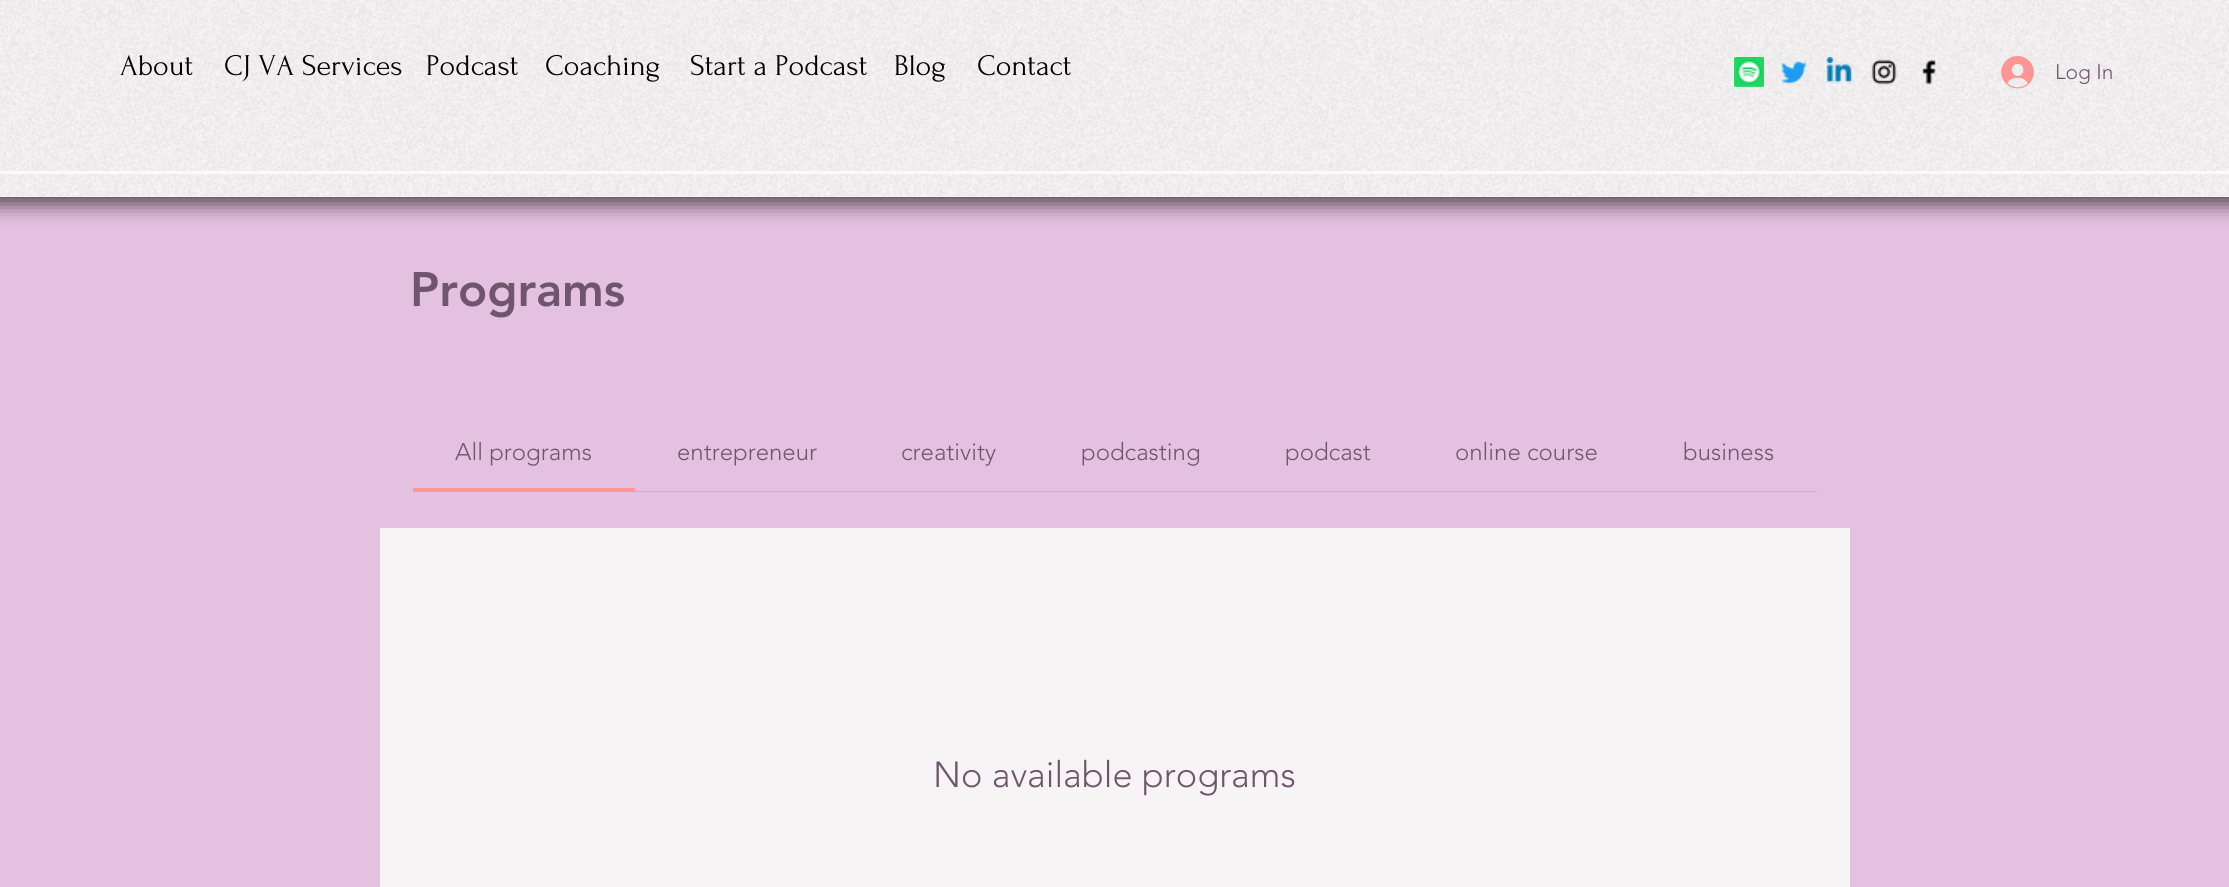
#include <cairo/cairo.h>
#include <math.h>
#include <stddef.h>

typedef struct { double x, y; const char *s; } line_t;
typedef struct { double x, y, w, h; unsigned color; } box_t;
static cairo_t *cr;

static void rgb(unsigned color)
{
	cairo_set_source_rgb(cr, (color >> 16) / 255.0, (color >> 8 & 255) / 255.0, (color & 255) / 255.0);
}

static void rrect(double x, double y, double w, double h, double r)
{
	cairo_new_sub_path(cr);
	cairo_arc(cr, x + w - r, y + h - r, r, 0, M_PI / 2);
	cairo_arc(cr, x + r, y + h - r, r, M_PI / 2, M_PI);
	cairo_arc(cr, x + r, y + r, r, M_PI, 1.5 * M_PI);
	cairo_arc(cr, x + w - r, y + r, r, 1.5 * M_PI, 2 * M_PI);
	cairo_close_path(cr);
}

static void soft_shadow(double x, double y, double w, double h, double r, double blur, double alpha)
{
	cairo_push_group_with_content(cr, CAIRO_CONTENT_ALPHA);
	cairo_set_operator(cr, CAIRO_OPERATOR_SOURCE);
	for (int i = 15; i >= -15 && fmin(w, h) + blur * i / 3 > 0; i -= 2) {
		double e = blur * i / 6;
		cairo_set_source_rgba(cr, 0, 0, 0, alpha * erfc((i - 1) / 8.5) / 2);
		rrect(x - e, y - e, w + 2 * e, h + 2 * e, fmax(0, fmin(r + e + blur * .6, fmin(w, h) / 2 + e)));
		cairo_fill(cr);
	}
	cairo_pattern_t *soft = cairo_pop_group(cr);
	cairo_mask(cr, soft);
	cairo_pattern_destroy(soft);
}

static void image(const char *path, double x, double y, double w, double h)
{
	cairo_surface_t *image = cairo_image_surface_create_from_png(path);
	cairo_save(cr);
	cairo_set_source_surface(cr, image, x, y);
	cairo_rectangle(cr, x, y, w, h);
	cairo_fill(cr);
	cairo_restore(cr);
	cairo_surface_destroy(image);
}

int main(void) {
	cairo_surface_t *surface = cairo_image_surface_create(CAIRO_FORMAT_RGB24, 2229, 887);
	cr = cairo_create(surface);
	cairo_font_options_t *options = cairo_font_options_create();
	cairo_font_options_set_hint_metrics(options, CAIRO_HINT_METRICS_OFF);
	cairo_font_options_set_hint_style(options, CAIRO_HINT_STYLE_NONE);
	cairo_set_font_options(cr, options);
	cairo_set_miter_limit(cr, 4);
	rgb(0xe4c1e0);
	cairo_paint(cr);
	rgb(0x000000);
	soft_shadow(-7, -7, 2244, 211, 0, 10.5, 0.66);
	rgb(0xf6f4f4);
	cairo_rectangle(cr, 0, 0, 2229, 197);
	cairo_fill(cr);
	image("img/1.png", 0, 0, 2229, 197);
	image("img/2.png", 1734, 57, 30, 30);
	image("img/3.png", 1780, 61, 28, 24);
	image("img/4.png", 1826, 57, 27, 26);
	image("img/5.png", 1871, 59, 26, 26);
	image("img/6.png", 1922, 59, 14, 26);
	image("img/7.png", 2001, 56, 33, 33);
	{
		static const box_t items[] = {
			{0, 171, 2229, 3, 0xfafafa},
			{413, 488, 222, 4, 0xff9693},
			{635, 491, 1182, 1, 0xcdacc9},
			{380, 528, 1470, 359, 0xf6f4f4},
		};
		for (size_t i = 0; i < sizeof items / sizeof *items; i++) {
			rgb(items[i].color);
			cairo_rectangle(cr, items[i].x, items[i].y, items[i].w, items[i].h);
			cairo_fill(cr);
		}
	}
	cairo_select_font_face(cr, "Forum", CAIRO_FONT_SLANT_NORMAL, CAIRO_FONT_WEIGHT_NORMAL);
	cairo_set_font_size(cr, 30);
	rgb(0x000000);
	{
		static const line_t items[] = {
			{120, 75, "About"},
			{224, 75, "CJ VA Services"},
			{426, 75, "Podcast"},
			{545, 75, "Coaching"},
			{690, 75, "Start a Podcast"},
			{894, 75, "Blog"},
			{977, 75, "Contact"},
		};
		for (size_t i = 0; i < sizeof items / sizeof *items; i++) {
			cairo_move_to(cr, items[i].x, items[i].y);
			cairo_show_text(cr, items[i].s);
		}
	}
	cairo_select_font_face(cr, "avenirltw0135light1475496 Light", CAIRO_FONT_SLANT_NORMAL, CAIRO_FONT_WEIGHT_NORMAL);
	cairo_set_font_size(cr, 21);
	rgb(0x70566d);
	cairo_move_to(cr, 2055, 79);
	cairo_show_text(cr, "Log In");
	cairo_select_font_face(cr, "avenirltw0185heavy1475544 Black", CAIRO_FONT_SLANT_NORMAL, CAIRO_FONT_WEIGHT_NORMAL);
	cairo_set_font_size(cr, 48);
	cairo_move_to(cr, 410, 306);
	cairo_show_text(cr, "Programs");
	cairo_select_font_face(cr, "avenirltw0135light1475496 Light", CAIRO_FONT_SLANT_NORMAL, CAIRO_FONT_WEIGHT_NORMAL);
	cairo_set_font_size(cr, 24);
	{
		static const line_t items[] = {
			{455, 460, "All programs"},
			{677, 460, "entrepreneur"},
			{901, 460, "creativity"},
			{1081, 460, "podcasting"},
			{1285, 460, "podcast"},
			{1455, 460, "online course"},
			{1683, 460, "business"},
		};
		for (size_t i = 0; i < sizeof items / sizeof *items; i++) {
			cairo_move_to(cr, items[i].x, items[i].y);
			cairo_show_text(cr, items[i].s);
		}
	}
	cairo_set_font_size(cr, 36);
	cairo_move_to(cr, 933, 787);
	cairo_show_text(cr, "No available programs");
	cairo_surface_write_to_png(surface, "page.png");
	cairo_font_options_destroy(options);
	cairo_destroy(cr);
	cairo_surface_destroy(surface);
	return 0;
}
